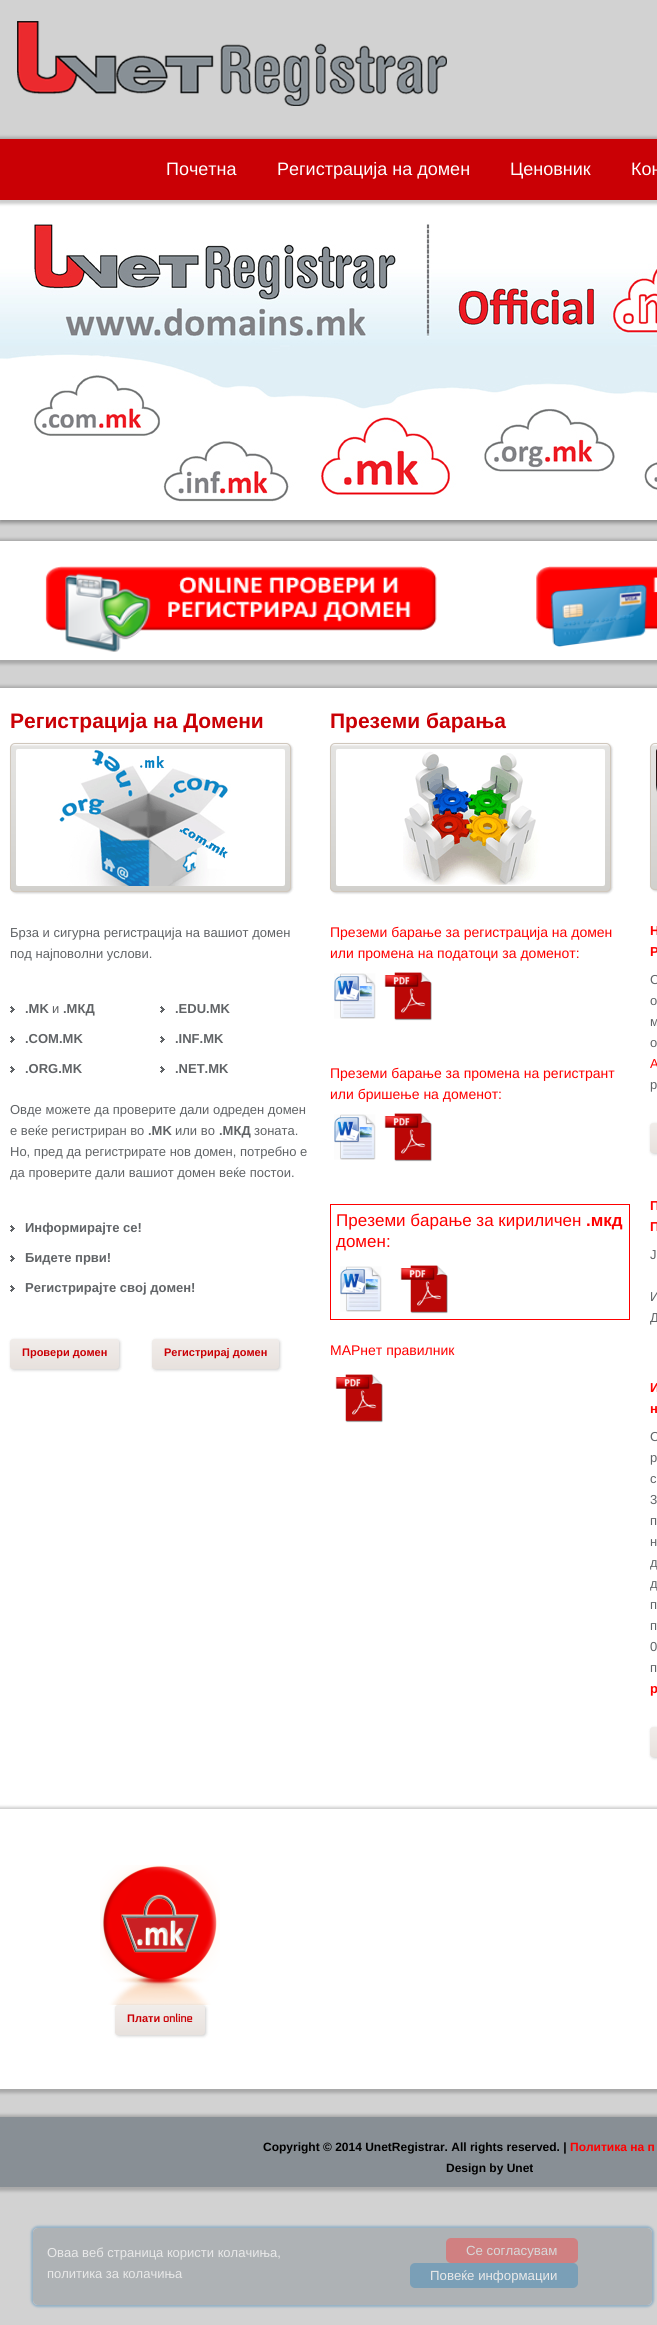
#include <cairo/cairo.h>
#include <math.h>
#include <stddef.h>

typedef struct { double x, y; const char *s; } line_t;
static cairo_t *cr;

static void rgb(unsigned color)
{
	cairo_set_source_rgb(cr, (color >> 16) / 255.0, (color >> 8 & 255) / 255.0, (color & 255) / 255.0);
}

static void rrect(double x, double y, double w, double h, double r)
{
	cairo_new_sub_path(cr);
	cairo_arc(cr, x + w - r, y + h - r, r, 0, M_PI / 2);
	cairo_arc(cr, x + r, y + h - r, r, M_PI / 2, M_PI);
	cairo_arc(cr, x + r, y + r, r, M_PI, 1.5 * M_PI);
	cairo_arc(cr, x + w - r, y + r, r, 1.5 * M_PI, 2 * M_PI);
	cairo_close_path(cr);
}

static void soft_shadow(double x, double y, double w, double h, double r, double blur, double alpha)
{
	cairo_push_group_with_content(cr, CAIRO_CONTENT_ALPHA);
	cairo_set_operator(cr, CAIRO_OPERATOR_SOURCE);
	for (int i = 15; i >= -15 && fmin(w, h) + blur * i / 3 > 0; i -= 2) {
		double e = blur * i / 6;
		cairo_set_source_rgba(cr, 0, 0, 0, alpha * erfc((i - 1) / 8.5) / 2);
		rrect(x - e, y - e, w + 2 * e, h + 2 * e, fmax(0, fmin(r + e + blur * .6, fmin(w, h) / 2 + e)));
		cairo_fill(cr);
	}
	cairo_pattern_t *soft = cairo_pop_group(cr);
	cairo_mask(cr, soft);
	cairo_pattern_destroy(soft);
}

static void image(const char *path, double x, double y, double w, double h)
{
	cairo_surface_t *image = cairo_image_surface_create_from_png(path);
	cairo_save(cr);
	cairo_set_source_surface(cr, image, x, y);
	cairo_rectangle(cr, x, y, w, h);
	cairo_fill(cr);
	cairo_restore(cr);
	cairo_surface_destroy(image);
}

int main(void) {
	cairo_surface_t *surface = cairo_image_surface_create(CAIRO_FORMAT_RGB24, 657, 2325);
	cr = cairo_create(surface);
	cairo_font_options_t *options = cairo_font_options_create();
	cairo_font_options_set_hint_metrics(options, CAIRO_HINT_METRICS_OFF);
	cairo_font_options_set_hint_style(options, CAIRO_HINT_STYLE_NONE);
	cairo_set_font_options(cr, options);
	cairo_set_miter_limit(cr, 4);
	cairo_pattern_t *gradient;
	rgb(0xd2d2d2);
	cairo_paint(cr);
	image("img/1.png", 17, 21, 430, 85);
	rgb(0x000000);
	soft_shadow(-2, 198, 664, 326, 0, 1.5, 0.2);
	soft_shadow(1, 201, 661, 320, 0, 1.5, 0.2);
	image("img/2.png", 0, 200, 657, 320);
	soft_shadow(-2, 137, 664, 67, 0, 1.5, 0.2);
	rgb(0xca0005);
	cairo_rectangle(cr, 0, 139, 657, 61);
	cairo_fill(cr);
	rgb(0x000000);
	soft_shadow(-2, 539, 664, 125, 0, 1.5, 0.2);
	rgb(0xffffff);
	cairo_rectangle(cr, 0, 541, 657, 119);
	cairo_fill(cr);
	image("img/3.png", 45, 566, 392, 86);
	image("img/4.png", 536, 566, 121, 81);
	rgb(0x000000);
	soft_shadow(-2, 686, 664, 1127, 0, 1.5, 0.2);
	rgb(0xffffff);
	cairo_rectangle(cr, 0, 688, 657, 1121);
	cairo_fill(cr);
	rgb(0x000000);
	soft_shadow(11, 744, 281, 149, 5, 1, 0.2);
	image("img/5.png", 10, 744, 281, 148);
	rrect(10.5, 743.5, 280, 148, 4.5);
	rgb(0xd0c7bc);
	cairo_set_line_width(cr, 1);
	cairo_stroke(cr);
	image("img/6.png", 16, 749, 269, 137);
	image("img/7.png", 10, 1006, 5, 7);
	image("img/7.png", 10, 1036, 5, 7);
	image("img/7.png", 10, 1066, 5, 7);
	image("img/7.png", 160, 1006, 5, 7);
	image("img/7.png", 160, 1036, 5, 7);
	image("img/7.png", 160, 1066, 5, 7);
	image("img/7.png", 10, 1225, 5, 7);
	image("img/7.png", 10, 1255, 5, 7);
	image("img/7.png", 10, 1285, 5, 7);
	rgb(0x000000);
	soft_shadow(11, 1340, 109, 30, 3, 1.5, 0.2);
	gradient = cairo_pattern_create_linear(65, 1339, 65, 1369);
	cairo_pattern_add_color_stop_rgba(gradient, 0, 0.945, 0.929, 0.918, 1);
	cairo_pattern_add_color_stop_rgba(gradient, 1, 0.906, 0.882, 0.867, 1);
	cairo_set_source(cr, gradient);
	cairo_pattern_destroy(gradient);
	rrect(10, 1339, 109, 30, 3);
	cairo_fill(cr);
	rgb(0x000000);
	soft_shadow(153, 1340, 127, 30, 3, 1.5, 0.2);
	gradient = cairo_pattern_create_linear(216, 1339, 216, 1369);
	cairo_pattern_add_color_stop_rgba(gradient, 0, 0.945, 0.929, 0.918, 1);
	cairo_pattern_add_color_stop_rgba(gradient, 1, 0.906, 0.882, 0.867, 1);
	cairo_set_source(cr, gradient);
	cairo_pattern_destroy(gradient);
	rrect(152, 1339, 127, 30, 3);
	cairo_fill(cr);
	rgb(0x000000);
	soft_shadow(331, 744, 281, 149, 5, 1, 0.2);
	image("img/5.png", 330, 744, 281, 148);
	rrect(330.5, 743.5, 280, 148, 4.5);
	rgb(0xd0c7bc);
	cairo_stroke(cr);
	image("img/8.png", 336, 749, 269, 137);
	image("img/9.png", 334, 973, 42, 46);
	image("img/10.png", 384, 972, 48, 49);
	image("img/11.png", 334, 1114, 42, 46);
	image("img/12.png", 384, 1113, 48, 49);
	cairo_rectangle(cr, 330.5, 1204.5, 299, 115);
	rgb(0xff0000);
	cairo_stroke(cr);
	image("img/9.png", 340, 1266, 42, 46);
	image("img/10.png", 400, 1265, 48, 49);
	image("img/10.png", 335, 1374, 48, 49);
	rgb(0x000000);
	soft_shadow(651, 744, 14, 147, 5, 1, 0.2);
	image("img/13.png", 650, 744, 7, 146);
	rrect(650.5, 743.5, 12, 146, 4.5);
	rgb(0xd0c7bc);
	cairo_stroke(cr);
	image("img/14.png", 656, 749, 1, 43);
	rgb(0x000000);
	soft_shadow(651, 1124, 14, 30, 3, 1.5, 0.2);
	gradient = cairo_pattern_create_linear(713, 1123, 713, 1153);
	cairo_pattern_add_color_stop_rgba(gradient, 0, 0.945, 0.929, 0.918, 1);
	cairo_pattern_add_color_stop_rgba(gradient, 1, 0.906, 0.882, 0.867, 1);
	cairo_set_source(cr, gradient);
	cairo_pattern_destroy(gradient);
	rrect(650, 1123, 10, 30, 3);
	cairo_fill(cr);
	rgb(0x000000);
	soft_shadow(651, 1728, 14, 30, 3, 1.5, 0.2);
	gradient = cairo_pattern_create_linear(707, 1727, 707, 1757);
	cairo_pattern_add_color_stop_rgba(gradient, 0, 0.945, 0.929, 0.918, 1);
	cairo_pattern_add_color_stop_rgba(gradient, 1, 0.906, 0.882, 0.867, 1);
	cairo_set_source(cr, gradient);
	cairo_pattern_destroy(gradient);
	rrect(650, 1727, 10, 30, 3);
	cairo_fill(cr);
	rgb(0x000000);
	soft_shadow(-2, 1807, 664, 286, 0, 1.5, 0.2);
	rgb(0xffffff);
	cairo_rectangle(cr, 0, 1809, 657, 280);
	cairo_fill(cr);
	image("img/15.png", 100, 1865, 120, 140);
	rgb(0x000000);
	soft_shadow(116, 2006, 90, 30, 3, 1.5, 0.2);
	gradient = cairo_pattern_create_linear(160, 2005, 160, 2035);
	cairo_pattern_add_color_stop_rgba(gradient, 0, 0.945, 0.929, 0.918, 1);
	cairo_pattern_add_color_stop_rgba(gradient, 1, 0.906, 0.882, 0.867, 1);
	cairo_set_source(cr, gradient);
	cairo_pattern_destroy(gradient);
	rrect(115, 2005, 90, 30, 3);
	cairo_fill(cr);
	rgb(0x000000);
	soft_shadow(-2, 2115, 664, 76, 0, 1.5, 0.2);
	rgb(0x888f95);
	cairo_rectangle(cr, 0, 2117, 657, 70);
	cairo_fill(cr);
	cairo_save(cr);
	cairo_set_fill_rule(cr, CAIRO_FILL_RULE_EVEN_ODD);
	cairo_new_path(cr);
	cairo_move_to(cr, 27, 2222);
	cairo_line_to(cr, 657, 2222);
	cairo_line_to(cr, 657, 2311);
	cairo_line_to(cr, 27, 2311);
	cairo_close_path(cr);
	cairo_move_to(cr, 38, 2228);
	cairo_line_to(cr, 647, 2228);
	cairo_curve_to(cr, 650, 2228, 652, 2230, 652, 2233);
	cairo_line_to(cr, 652, 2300);
	cairo_curve_to(cr, 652, 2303, 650, 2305, 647, 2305);
	cairo_line_to(cr, 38, 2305);
	cairo_curve_to(cr, 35, 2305, 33, 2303, 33, 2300);
	cairo_line_to(cr, 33, 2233);
	cairo_curve_to(cr, 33, 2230, 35, 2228, 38, 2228);
	cairo_close_path(cr);
	cairo_clip(cr);
	rgb(0x95b2c6);
	soft_shadow(31, 2226, 623, 81, 7, 1, 1);
	cairo_restore(cr);
	cairo_set_source_rgba(cr, 0.675, 0.69, 0.702, 0.92);
	rrect(33, 2228, 619, 77, 5);
	cairo_fill(cr);
	rgb(0xd08081);
	rrect(446, 2238, 132, 25, 5);
	cairo_fill(cr);
	rgb(0x7a9fb7);
	rrect(410, 2263, 168, 25, 5);
	cairo_fill(cr);
	cairo_select_font_face(cr, "Liberation Sans", CAIRO_FONT_SLANT_NORMAL, CAIRO_FONT_WEIGHT_NORMAL);
	cairo_set_font_size(cr, 18);
	rgb(0xffffff);
	{
		static const line_t items[] = {
			{166, 175, "Почетна"},
			{277, 175, "Регистрација на домен"},
			{510, 175, "Ценовник"},
			{631, 175, "Кон"},
		};
		for (size_t i = 0; i < sizeof items / sizeof *items; i++) {
			cairo_move_to(cr, items[i].x, items[i].y);
			cairo_show_text(cr, items[i].s);
		}
	}
	cairo_select_font_face(cr, "Liberation Sans", CAIRO_FONT_SLANT_NORMAL, CAIRO_FONT_WEIGHT_BOLD);
	cairo_set_font_size(cr, 21);
	rgb(0xca0005);
	cairo_move_to(cr, 10, 728);
	cairo_show_text(cr, "Регистрација на Домени");
	cairo_select_font_face(cr, "Liberation Sans", CAIRO_FONT_SLANT_NORMAL, CAIRO_FONT_WEIGHT_NORMAL);
	cairo_set_font_size(cr, 13);
	rgb(0x606366);
	cairo_move_to(cr, 10, 937);
	cairo_show_text(cr, "Брза и сигурна регистрација на вашиот домен");
	cairo_move_to(cr, 10, 958);
	cairo_show_text(cr, "под најповолни услови.");
	cairo_select_font_face(cr, "Liberation Sans", CAIRO_FONT_SLANT_NORMAL, CAIRO_FONT_WEIGHT_BOLD);
	cairo_move_to(cr, 25, 1013);
	cairo_show_text(cr, ".MK");
	cairo_select_font_face(cr, "Liberation Sans", CAIRO_FONT_SLANT_NORMAL, CAIRO_FONT_WEIGHT_NORMAL);
	cairo_move_to(cr, 52, 1013);
	cairo_show_text(cr, "и");
	cairo_select_font_face(cr, "Liberation Sans", CAIRO_FONT_SLANT_NORMAL, CAIRO_FONT_WEIGHT_BOLD);
	{
		static const line_t items[] = {
			{63, 1013, ".МКД"},
			{25, 1043, ".COM.MK"},
			{25, 1073, ".ORG.MK"},
			{175, 1013, ".EDU.MK"},
			{175, 1043, ".INF.MK"},
			{175, 1073, ".NET.MK"},
		};
		for (size_t i = 0; i < sizeof items / sizeof *items; i++) {
			cairo_move_to(cr, items[i].x, items[i].y);
			cairo_show_text(cr, items[i].s);
		}
	}
	cairo_select_font_face(cr, "Liberation Sans", CAIRO_FONT_SLANT_NORMAL, CAIRO_FONT_WEIGHT_NORMAL);
	cairo_move_to(cr, 10, 1114);
	cairo_show_text(cr, "Овде можете да проверите дали одреден домен");
	cairo_move_to(cr, 10, 1135);
	cairo_show_text(cr, "е веќе регистриран во");
	cairo_select_font_face(cr, "Liberation Sans", CAIRO_FONT_SLANT_NORMAL, CAIRO_FONT_WEIGHT_BOLD);
	cairo_move_to(cr, 148, 1135);
	cairo_show_text(cr, ".МK");
	cairo_select_font_face(cr, "Liberation Sans", CAIRO_FONT_SLANT_NORMAL, CAIRO_FONT_WEIGHT_NORMAL);
	cairo_move_to(cr, 175, 1135);
	cairo_show_text(cr, "или во");
	cairo_select_font_face(cr, "Liberation Sans", CAIRO_FONT_SLANT_NORMAL, CAIRO_FONT_WEIGHT_BOLD);
	cairo_move_to(cr, 219, 1135);
	cairo_show_text(cr, ".МКД");
	cairo_select_font_face(cr, "Liberation Sans", CAIRO_FONT_SLANT_NORMAL, CAIRO_FONT_WEIGHT_NORMAL);
	{
		static const line_t items[] = {
			{254, 1135, "зоната."},
			{10, 1156, "Но, пред да регистрирате нов домен, потребно е"},
			{10, 1177, "да проверите дали вашиот домен веќе постои."},
		};
		for (size_t i = 0; i < sizeof items / sizeof *items; i++) {
			cairo_move_to(cr, items[i].x, items[i].y);
			cairo_show_text(cr, items[i].s);
		}
	}
	cairo_select_font_face(cr, "Liberation Sans", CAIRO_FONT_SLANT_NORMAL, CAIRO_FONT_WEIGHT_BOLD);
	{
		static const line_t items[] = {
			{25, 1232, "Информирајте се!"},
			{25, 1262, "Бидете први!"},
			{25, 1292, "Регистрирајте свој домен!"},
		};
		for (size_t i = 0; i < sizeof items / sizeof *items; i++) {
			cairo_move_to(cr, items[i].x, items[i].y);
			cairo_show_text(cr, items[i].s);
		}
	}
	cairo_set_font_size(cr, 11);
	rgb(0xca0005);
	cairo_move_to(cr, 22, 1356);
	cairo_show_text(cr, "Провери домен");
	cairo_move_to(cr, 164, 1356);
	cairo_show_text(cr, "Регистрирај домен");
	cairo_set_font_size(cr, 21);
	cairo_move_to(cr, 330, 728);
	cairo_show_text(cr, "Преземи барања");
	cairo_select_font_face(cr, "Liberation Sans", CAIRO_FONT_SLANT_NORMAL, CAIRO_FONT_WEIGHT_NORMAL);
	cairo_set_font_size(cr, 14);
	rgb(0xff0000);
	{
		static const line_t items[] = {
			{330, 937, "Преземи барање за регистрација на домен"},
			{330, 958, "или промена на податоци за доменот:"},
			{330, 1078, "Преземи барање за промена на регистрант"},
			{330, 1099, "или бришење на доменот:"},
		};
		for (size_t i = 0; i < sizeof items / sizeof *items; i++) {
			cairo_move_to(cr, items[i].x, items[i].y);
			cairo_show_text(cr, items[i].s);
		}
	}
	cairo_set_font_size(cr, 17);
	cairo_move_to(cr, 336, 1226);
	cairo_show_text(cr, "Преземи барање за кириличен");
	cairo_select_font_face(cr, "Liberation Sans", CAIRO_FONT_SLANT_NORMAL, CAIRO_FONT_WEIGHT_BOLD);
	cairo_move_to(cr, 586, 1226);
	cairo_show_text(cr, ".мкд");
	cairo_select_font_face(cr, "Liberation Sans", CAIRO_FONT_SLANT_NORMAL, CAIRO_FONT_WEIGHT_NORMAL);
	cairo_move_to(cr, 336, 1247);
	cairo_show_text(cr, "домен:");
	cairo_set_font_size(cr, 14);
	cairo_move_to(cr, 330, 1355);
	cairo_show_text(cr, "МАРнет правилник");
	cairo_select_font_face(cr, "Liberation Sans", CAIRO_FONT_SLANT_NORMAL, CAIRO_FONT_WEIGHT_BOLD);
	cairo_set_font_size(cr, 13);
	cairo_move_to(cr, 650, 935);
	cairo_show_text(cr, "Н");
	cairo_move_to(cr, 650, 956);
	cairo_show_text(cr, "Р");
	cairo_select_font_face(cr, "Liberation Sans", CAIRO_FONT_SLANT_NORMAL, CAIRO_FONT_WEIGHT_NORMAL);
	rgb(0x606366);
	{
		static const line_t items[] = {
			{650, 984, "С"},
			{650, 1005, "о"},
			{650, 1026, "м"},
			{650, 1047, "о"},
		};
		for (size_t i = 0; i < sizeof items / sizeof *items; i++) {
			cairo_move_to(cr, items[i].x, items[i].y);
			cairo_show_text(cr, items[i].s);
		}
	}
	rgb(0xff0000);
	cairo_move_to(cr, 650, 1068);
	cairo_show_text(cr, "А");
	rgb(0x606366);
	cairo_move_to(cr, 650, 1089);
	cairo_show_text(cr, "р");
	cairo_select_font_face(cr, "Liberation Sans", CAIRO_FONT_SLANT_NORMAL, CAIRO_FONT_WEIGHT_BOLD);
	rgb(0xff0000);
	cairo_move_to(cr, 650, 1210);
	cairo_show_text(cr, "П");
	cairo_move_to(cr, 650, 1231);
	cairo_show_text(cr, "П");
	cairo_select_font_face(cr, "Liberation Sans", CAIRO_FONT_SLANT_NORMAL, CAIRO_FONT_WEIGHT_NORMAL);
	rgb(0x606366);
	{
		static const line_t items[] = {
			{650, 1259, "Ј"},
			{650, 1301, "И"},
			{650, 1322, "Д"},
		};
		for (size_t i = 0; i < sizeof items / sizeof *items; i++) {
			cairo_move_to(cr, items[i].x, items[i].y);
			cairo_show_text(cr, items[i].s);
		}
	}
	cairo_select_font_face(cr, "Liberation Sans", CAIRO_FONT_SLANT_NORMAL, CAIRO_FONT_WEIGHT_BOLD);
	rgb(0xff0000);
	cairo_move_to(cr, 650, 1392);
	cairo_show_text(cr, "И");
	cairo_move_to(cr, 650, 1413);
	cairo_show_text(cr, "н");
	cairo_select_font_face(cr, "Liberation Sans", CAIRO_FONT_SLANT_NORMAL, CAIRO_FONT_WEIGHT_NORMAL);
	rgb(0x606366);
	{
		static const line_t items[] = {
			{650, 1441, "С"},
			{650, 1462, "р"},
			{650, 1483, "с"},
			{650, 1504, "3"},
			{650, 1525, "п"},
			{650, 1546, "н"},
			{650, 1567, "д"},
			{650, 1588, "д"},
			{650, 1609, "п"},
			{650, 1630, "п"},
			{650, 1651, "0"},
			{650, 1672, "п"},
		};
		for (size_t i = 0; i < sizeof items / sizeof *items; i++) {
			cairo_move_to(cr, items[i].x, items[i].y);
			cairo_show_text(cr, items[i].s);
		}
	}
	cairo_select_font_face(cr, "Liberation Sans", CAIRO_FONT_SLANT_NORMAL, CAIRO_FONT_WEIGHT_BOLD);
	rgb(0xff0000);
	cairo_move_to(cr, 650, 1693);
	cairo_show_text(cr, "р");
	cairo_set_font_size(cr, 11);
	rgb(0xca0005);
	cairo_move_to(cr, 127, 2022);
	cairo_show_text(cr, "Плати");
	cairo_select_font_face(cr, "Electrolize", CAIRO_FONT_SLANT_NORMAL, CAIRO_FONT_WEIGHT_BOLD);
	cairo_move_to(cr, 163, 2022);
	cairo_show_text(cr, "online");
	cairo_select_font_face(cr, "Liberation Sans", CAIRO_FONT_SLANT_NORMAL, CAIRO_FONT_WEIGHT_BOLD);
	cairo_set_font_size(cr, 12);
	rgb(0x000000);
	cairo_move_to(cr, 263, 2151);
	cairo_show_text(cr, "Copyright © 2014 UnetRegistrar. All rights reserved. |");
	rgb(0xff0000);
	cairo_move_to(cr, 570, 2151);
	cairo_show_text(cr, "Политика на п");
	rgb(0x000000);
	cairo_move_to(cr, 446, 2172);
	cairo_show_text(cr, "Design by Unet");
	cairo_select_font_face(cr, "Liberation Sans", CAIRO_FONT_SLANT_NORMAL, CAIRO_FONT_WEIGHT_NORMAL);
	cairo_set_font_size(cr, 13);
	rgb(0xe9e9e9);
	cairo_move_to(cr, 47, 2257);
	cairo_show_text(cr, "Оваа веб страница користи колачиња,");
	cairo_move_to(cr, 47, 2278);
	cairo_show_text(cr, "политика за колачиња");
	cairo_set_font_size(cr, 13.25);
	rgb(0xd8d8d8);
	cairo_move_to(cr, 466, 2255);
	cairo_show_text(cr, "Се согласувам");
	rgb(0xe9e9e9);
	cairo_move_to(cr, 430, 2280);
	cairo_show_text(cr, "Повеќе информации");
	cairo_surface_write_to_png(surface, "page.png");
	cairo_font_options_destroy(options);
	cairo_destroy(cr);
	cairo_surface_destroy(surface);
	return 0;
}
